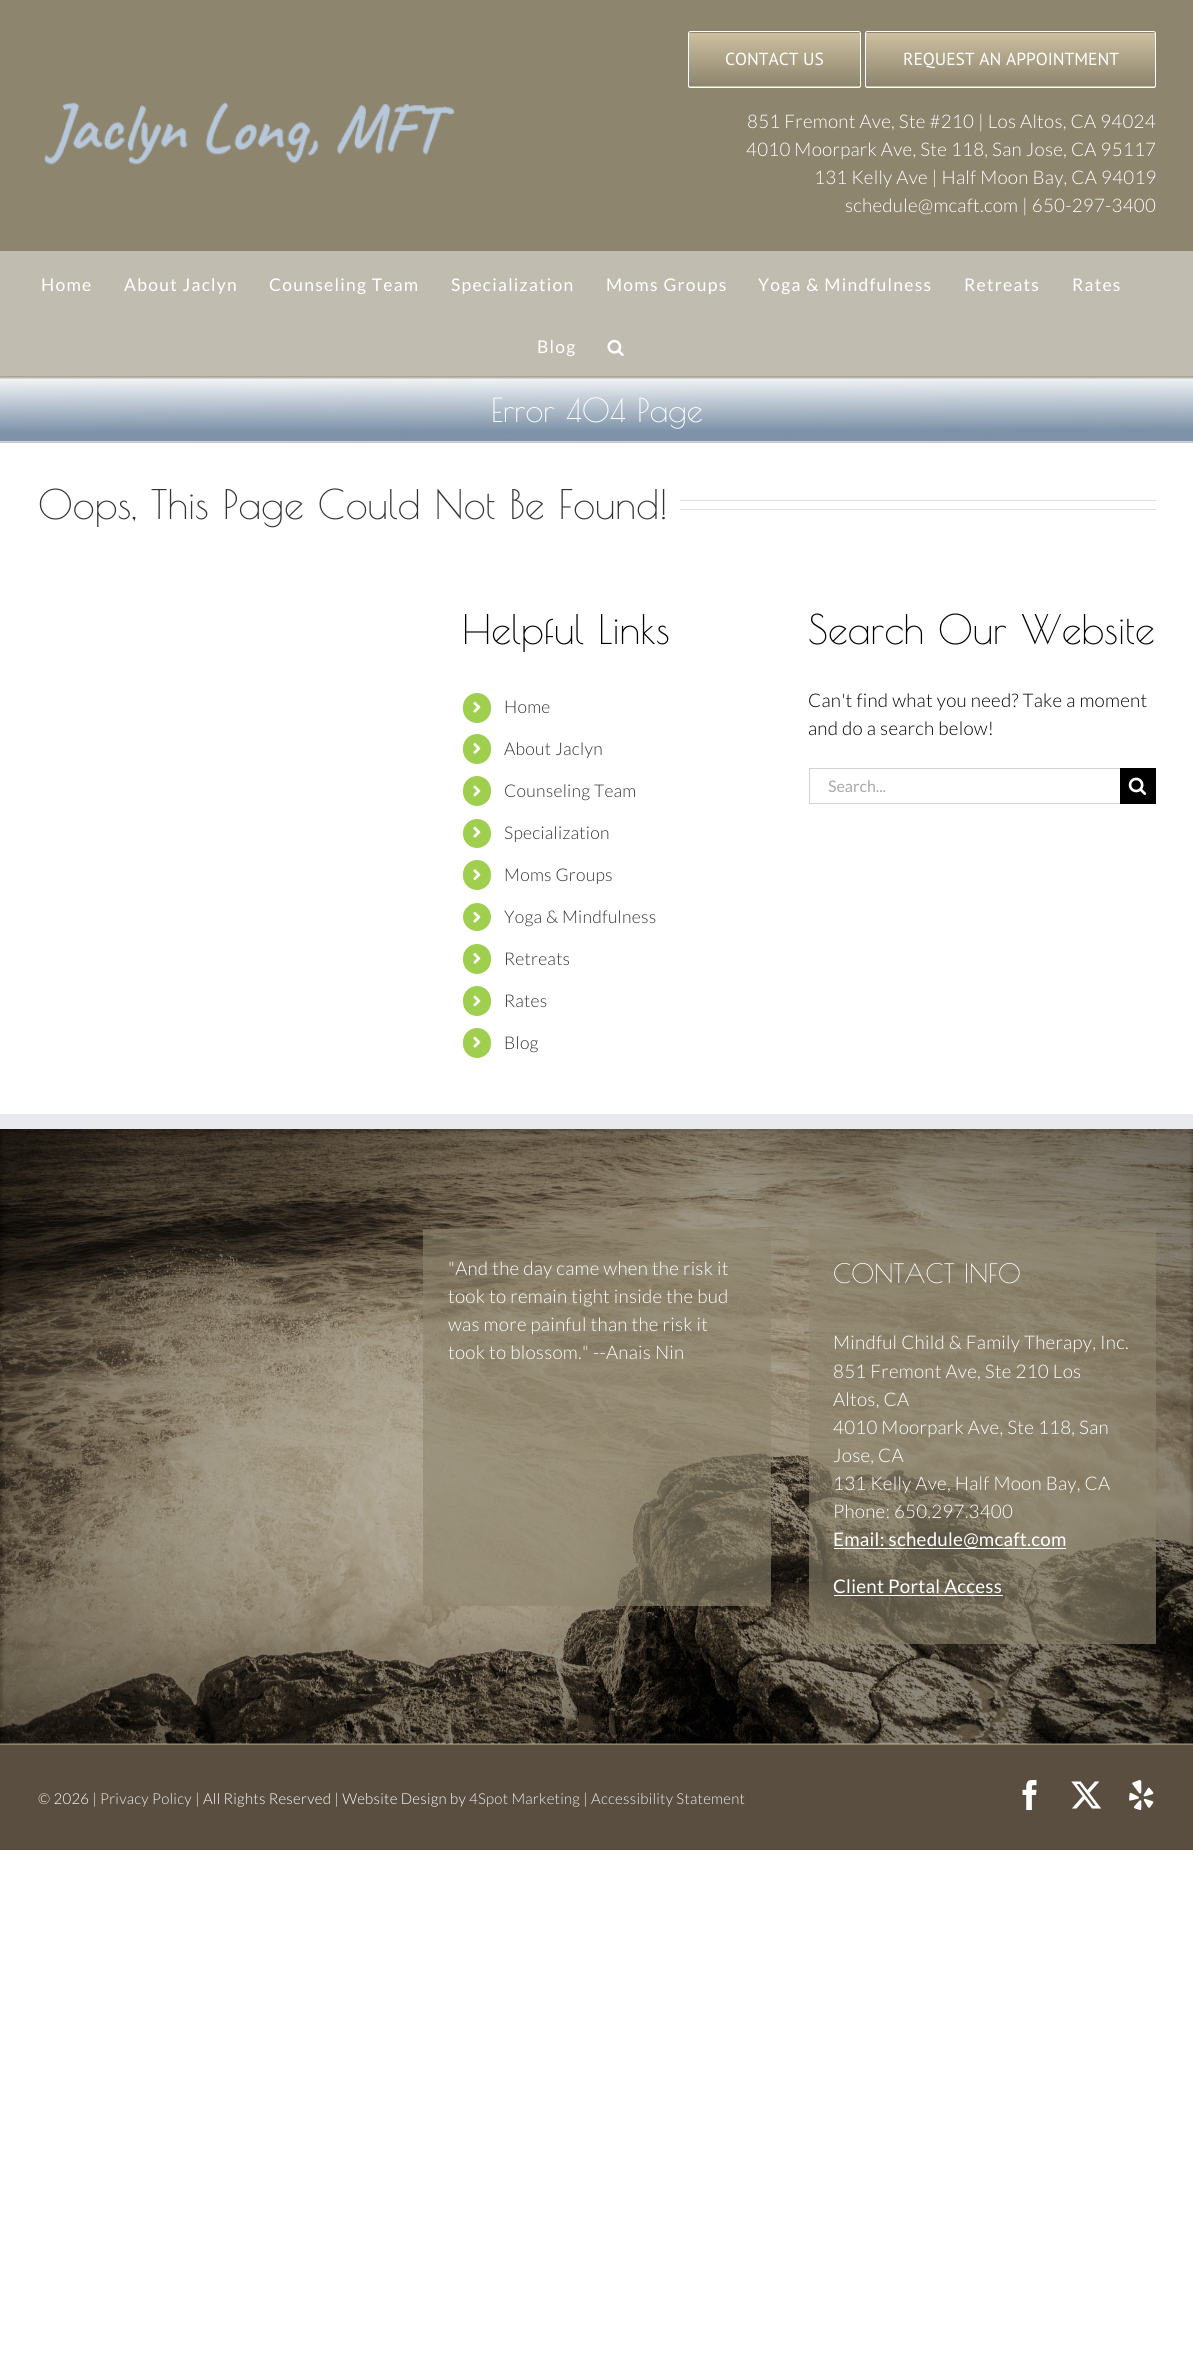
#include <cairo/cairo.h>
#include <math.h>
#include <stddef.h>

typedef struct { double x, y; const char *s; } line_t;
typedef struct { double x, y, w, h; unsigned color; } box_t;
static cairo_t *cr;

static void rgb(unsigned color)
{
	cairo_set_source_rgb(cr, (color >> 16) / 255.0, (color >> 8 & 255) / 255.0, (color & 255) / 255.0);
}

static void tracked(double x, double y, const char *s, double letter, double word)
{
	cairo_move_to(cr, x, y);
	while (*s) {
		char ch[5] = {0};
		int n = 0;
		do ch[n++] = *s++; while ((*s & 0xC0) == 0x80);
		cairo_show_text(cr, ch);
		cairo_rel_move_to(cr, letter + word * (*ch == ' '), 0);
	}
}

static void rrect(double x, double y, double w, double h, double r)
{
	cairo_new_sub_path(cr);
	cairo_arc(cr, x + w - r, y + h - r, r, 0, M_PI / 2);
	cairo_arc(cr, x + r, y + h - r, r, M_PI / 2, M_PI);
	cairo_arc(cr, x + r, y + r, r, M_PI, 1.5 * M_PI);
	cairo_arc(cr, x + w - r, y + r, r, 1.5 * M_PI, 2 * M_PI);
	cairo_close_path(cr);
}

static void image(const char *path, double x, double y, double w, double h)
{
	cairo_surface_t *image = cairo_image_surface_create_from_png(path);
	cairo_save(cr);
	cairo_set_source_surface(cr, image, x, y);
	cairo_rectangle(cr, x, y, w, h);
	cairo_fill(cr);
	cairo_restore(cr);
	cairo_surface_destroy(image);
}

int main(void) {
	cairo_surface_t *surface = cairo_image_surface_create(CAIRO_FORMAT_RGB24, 1193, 2377);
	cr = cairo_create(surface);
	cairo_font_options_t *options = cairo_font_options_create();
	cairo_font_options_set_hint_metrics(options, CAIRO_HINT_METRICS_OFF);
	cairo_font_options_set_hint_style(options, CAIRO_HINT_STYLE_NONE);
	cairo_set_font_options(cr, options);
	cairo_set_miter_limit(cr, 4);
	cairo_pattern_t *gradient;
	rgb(0xffffff);
	cairo_paint(cr);
	rgb(0x8e856f);
	cairo_rectangle(cr, 0, 0, 1193, 251);
	cairo_fill(cr);
	image("img/1.png", 44, 102, 411, 63);
	gradient = cairo_pattern_create_linear(774, 32, 774, 86);
	cairo_pattern_add_color_stop_rgba(gradient, 0, 0.808, 0.757, 0.631, 1);
	cairo_pattern_add_color_stop_rgba(gradient, 1, 0.557, 0.522, 0.435, 1);
	cairo_set_source(cr, gradient);
	cairo_pattern_destroy(gradient);
	cairo_rectangle(cr, 688, 33, 173, 51);
	cairo_fill(cr);
	cairo_save(cr);
	rrect(688, 31, 173, 57, 2.5);
	cairo_clip(cr);
	gradient = cairo_pattern_create_linear(774, 86, 774, 140);
	cairo_pattern_add_color_stop_rgba(gradient, 0, 0.808, 0.757, 0.631, 1);
	cairo_pattern_add_color_stop_rgba(gradient, 1, 0.557, 0.522, 0.435, 1);
	cairo_set_source(cr, gradient);
	cairo_pattern_destroy(gradient);
	cairo_rectangle(cr, 688, 86, 173, 2);
	cairo_fill(cr);
	cairo_restore(cr);
	rrect(688.5, 31.5, 172, 56, 2);
	rgb(0xffffff);
	cairo_set_line_width(cr, 1);
	cairo_stroke(cr);
	gradient = cairo_pattern_create_linear(1011, 32, 1011, 86);
	cairo_pattern_add_color_stop_rgba(gradient, 0, 0.808, 0.757, 0.631, 1);
	cairo_pattern_add_color_stop_rgba(gradient, 1, 0.557, 0.522, 0.435, 1);
	cairo_set_source(cr, gradient);
	cairo_pattern_destroy(gradient);
	cairo_rectangle(cr, 865, 33, 291, 51);
	cairo_fill(cr);
	cairo_save(cr);
	rrect(865, 31, 291, 57, 2.5);
	cairo_clip(cr);
	gradient = cairo_pattern_create_linear(1011, 86, 1011, 140);
	cairo_pattern_add_color_stop_rgba(gradient, 0, 0.808, 0.757, 0.631, 1);
	cairo_pattern_add_color_stop_rgba(gradient, 1, 0.557, 0.522, 0.435, 1);
	cairo_set_source(cr, gradient);
	cairo_pattern_destroy(gradient);
	cairo_rectangle(cr, 865, 86, 291, 2);
	cairo_fill(cr);
	cairo_restore(cr);
	rrect(865.5, 31.5, 290, 56, 2);
	rgb(0xffffff);
	cairo_stroke(cr);
	rgb(0xf6f6f6);
	cairo_rectangle(cr, 0, 442, 1193, 1);
	cairo_fill(cr);
	image("img/3.png", 0, 377, 1193, 66);
	cairo_set_source_rgba(cr, 0.557, 0.522, 0.435, 0.55);
	cairo_rectangle(cr, 0, 251, 1193, 127);
	cairo_fill(cr);
	rgb(0xaaa393);
	cairo_rectangle(cr, 0, 376, 1193, 1);
	cairo_fill(cr);
	image("img/2.png", 607, 339, 17, 17);
	{
		static const box_t items[] = {
			{0, 378, 1193, 1, 0xd2d3d4},
			{0, 441, 1193, 1, 0xd2d3d4},
			{680, 500, 476, 1, 0xe0dede},
			{680, 509, 476, 1, 0xe0dede},
		};
		for (size_t i = 0; i < sizeof items / sizeof *items; i++) {
			rgb(items[i].color);
			cairo_rectangle(cr, items[i].x, items[i].y, items[i].w, items[i].h);
			cairo_fill(cr);
		}
	}
	rgb(0xa0ce4e);
	rrect(463, 693, 28, 30, 14);
	cairo_fill(cr);
	image("img/4.png", 473, 701, 8, 12);
	rrect(463, 734, 28, 30, 14);
	cairo_fill(cr);
	image("img/5.png", 473, 743, 8, 11);
	rrect(463, 776, 28, 30, 14);
	cairo_fill(cr);
	image("img/6.png", 473, 785, 8, 12);
	rrect(463, 819, 28, 29, 14);
	cairo_fill(cr);
	image("img/4.png", 473, 826, 8, 12);
	rrect(463, 860, 28, 30, 14);
	cairo_fill(cr);
	image("img/7.png", 473, 869, 8, 12);
	cairo_arc(cr, 477, 917, 14, 0, 2 * M_PI);
	cairo_fill(cr);
	image("img/4.png", 473, 911, 8, 12);
	rrect(463, 944, 28, 30, 14);
	cairo_fill(cr);
	image("img/5.png", 473, 953, 8, 11);
	rrect(463, 986, 28, 30, 14);
	cairo_fill(cr);
	image("img/6.png", 473, 995, 8, 12);
	rrect(463, 1028, 28, 30, 14);
	cairo_fill(cr);
	image("img/4.png", 473, 1036, 8, 12);
	{
		static const box_t items[] = {
			{809, 768, 311, 1, 0xd2d2d2},
			{809, 803, 311, 1, 0xd2d2d2},
			{809, 768, 1, 36, 0xd2d2d2},
			{1120, 768, 36, 36, 0x000000},
		};
		for (size_t i = 0; i < sizeof items / sizeof *items; i++) {
			rgb(items[i].color);
			cairo_rectangle(cr, items[i].x, items[i].y, items[i].w, items[i].h);
			cairo_fill(cr);
		}
	}
	image("img/8.png", 1128, 777, 19, 18);
	image("img/9.png", 0, 1129, 1193, 615);
	rgb(0xe9eaee);
	cairo_rectangle(cr, 0, 1114, 1193, 15);
	cairo_fill(cr);
	cairo_set_source_rgba(cr, 0.557, 0.522, 0.435, 0.6);
	cairo_rectangle(cr, 423, 1229, 348, 377);
	cairo_fill(cr);
	cairo_rectangle(cr, 809, 1229, 347, 415);
	cairo_fill(cr);
	rgb(0xffffff);
	cairo_rectangle(cr, 834, 1548, 232, 1);
	cairo_fill(cr);
	cairo_rectangle(cr, 834, 1595, 169, 1);
	cairo_fill(cr);
	rgb(0x594e3f);
	cairo_rectangle(cr, 0, 1745, 1193, 105);
	cairo_fill(cr);
	rgb(0x8e856f);
	cairo_rectangle(cr, 0, 1744, 1193, 1);
	cairo_fill(cr);
	image("img/10.png", 1022, 1780, 15, 30);
	image("img/11.png", 1071, 1781, 31, 28);
	image("img/12.png", 1129, 1780, 25, 30);
	cairo_select_font_face(cr, "PT Sans", CAIRO_FONT_SLANT_NORMAL, CAIRO_FONT_WEIGHT_NORMAL);
	cairo_set_font_size(cr, 17.5);
	rgb(0xffffff);
	cairo_move_to(cr, 725, 65);
	cairo_show_text(cr, "CONTACT US");
	cairo_move_to(cr, 903, 65);
	cairo_show_text(cr, "REQUEST AN APPOINTMENT");
	cairo_select_font_face(cr, "Lato Light", CAIRO_FONT_SLANT_NORMAL, CAIRO_FONT_WEIGHT_NORMAL);
	cairo_set_font_size(cr, 18.75);
	{
		static const line_t items[] = {
			{747, 128, "851 Fremont Ave, Ste #210 | Los Altos, CA 94024"},
			{746, 156, "4010 Moorpark Ave, Ste 118, San Jose, CA 95117"},
			{814, 184, "131 Kelly Ave | Half Moon Bay, CA 94019"},
			{845, 212, "schedule@mcaft.com | 650-297-3400"},
		};
		for (size_t i = 0; i < sizeof items / sizeof *items; i++) {
			tracked(items[i].x, items[i].y, items[i].s, 0.25, 0);
		}
	}
	cairo_select_font_face(cr, "Lato", CAIRO_FONT_SLANT_NORMAL, CAIRO_FONT_WEIGHT_NORMAL);
	cairo_set_font_size(cr, 17.5);
	{
		static const line_t items[] = {
			{41, 291, "Home"},
			{124, 291, "About Jaclyn"},
			{269, 291, "Counseling Team"},
			{451, 291, "Specialization"},
			{606, 291, "Moms Groups"},
			{758, 291, "Yoga & Mindfulness"},
			{964, 291, "Retreats"},
			{1072, 291, "Rates"},
			{537, 353, "Blog"},
		};
		for (size_t i = 0; i < sizeof items / sizeof *items; i++) {
			tracked(items[i].x, items[i].y, items[i].s, 1.25, 0);
		}
	}
	cairo_select_font_face(cr, "Poiret One", CAIRO_FONT_SLANT_NORMAL, CAIRO_FONT_WEIGHT_NORMAL);
	cairo_set_font_size(cr, 32.5);
	cairo_move_to(cr, 491, 422);
	cairo_show_text(cr, "Error 404 Page");
	cairo_set_font_size(cr, 40);
	rgb(0x333333);
	cairo_move_to(cr, 38, 519);
	cairo_show_text(cr, "Oops, This Page Could Not Be Found!");
	rgb(0x000000);
	cairo_move_to(cr, 462, 644);
	cairo_show_text(cr, "Helpful Links");
	cairo_select_font_face(cr, "Lato Light", CAIRO_FONT_SLANT_NORMAL, CAIRO_FONT_WEIGHT_NORMAL);
	cairo_set_font_size(cr, 17.5);
	rgb(0x333333);
	{
		static const line_t items[] = {
			{504, 713, "Home"},
			{504, 755, "About Jaclyn"},
			{504, 797, "Counseling Team"},
			{504, 839, "Specialization"},
			{504, 881, "Moms Groups"},
			{504, 923, "Yoga & Mindfulness"},
			{504, 965, "Retreats"},
			{504, 1007, "Rates"},
			{504, 1049, "Blog"},
		};
		for (size_t i = 0; i < sizeof items / sizeof *items; i++) {
			tracked(items[i].x, items[i].y, items[i].s, 0.25, 0);
		}
	}
	cairo_select_font_face(cr, "Poiret One", CAIRO_FONT_SLANT_NORMAL, CAIRO_FONT_WEIGHT_NORMAL);
	cairo_set_font_size(cr, 40);
	rgb(0x000000);
	cairo_move_to(cr, 808, 644);
	cairo_show_text(cr, "Search Our Website");
	cairo_select_font_face(cr, "Lato Light", CAIRO_FONT_SLANT_NORMAL, CAIRO_FONT_WEIGHT_NORMAL);
	cairo_set_font_size(cr, 18.75);
	tracked(808, 707, "Can't find what you need? Take a moment", 0.25, 0);
	tracked(808, 735, "and do a search below!", 0.25, 0);
	cairo_select_font_face(cr, "Lato", CAIRO_FONT_SLANT_NORMAL, CAIRO_FONT_WEIGHT_NORMAL);
	cairo_set_font_size(cr, 16);
	rgb(0xaaa9a9);
	cairo_move_to(cr, 828, 792);
	cairo_show_text(cr, "Search...");
	cairo_select_font_face(cr, "Lato Light", CAIRO_FONT_SLANT_NORMAL, CAIRO_FONT_WEIGHT_NORMAL);
	cairo_set_font_size(cr, 18.75);
	rgb(0xffffff);
	{
		static const line_t items[] = {
			{448, 1275, "\"And the day came when the risk it"},
			{448, 1303, "took to remain tight inside the bud"},
			{448, 1331, "was more painful than the risk it"},
			{448, 1359, "took to blossom.\" --Anais Nin"},
		};
		for (size_t i = 0; i < sizeof items / sizeof *items; i++) {
			tracked(items[i].x, items[i].y, items[i].s, 0.25, 0);
		}
	}
	cairo_select_font_face(cr, "Poiret One", CAIRO_FONT_SLANT_NORMAL, CAIRO_FONT_WEIGHT_NORMAL);
	cairo_set_font_size(cr, 26.25);
	cairo_move_to(cr, 833, 1283);
	cairo_show_text(cr, "CONTACT INFO");
	cairo_select_font_face(cr, "Lato Light", CAIRO_FONT_SLANT_NORMAL, CAIRO_FONT_WEIGHT_NORMAL);
	cairo_set_font_size(cr, 18.75);
	{
		static const line_t items[] = {
			{833, 1349, "Mindful Child & Family Therapy, Inc."},
			{833, 1378, "851 Fremont Ave, Ste 210 Los"},
			{833, 1406, "Altos, CA"},
			{833, 1434, "4010 Moorpark Ave, Ste 118, San"},
			{833, 1462, "Jose, CA"},
			{833, 1490, "131 Kelly Ave, Half Moon Bay, CA"},
			{833, 1518, "Phone: 650.297.3400"},
		};
		for (size_t i = 0; i < sizeof items / sizeof *items; i++) {
			tracked(items[i].x, items[i].y, items[i].s, 0.25, 0);
		}
	}
	cairo_select_font_face(cr, "Lato", CAIRO_FONT_SLANT_NORMAL, CAIRO_FONT_WEIGHT_NORMAL);
	tracked(833, 1546, "Email: schedule@mcaft.com", 0.25, 0);
	tracked(833, 1593, "Client Portal Access", 0.25, 0);
	cairo_select_font_face(cr, "Lato Light", CAIRO_FONT_SLANT_NORMAL, CAIRO_FONT_WEIGHT_NORMAL);
	cairo_set_font_size(cr, 15);
	tracked(38, 1804, "© 2026 |", 0.25, 0);
	rgb(0xefefef);
	tracked(100, 1804, "Privacy Policy", 0.25, 0);
	rgb(0xffffff);
	tracked(195, 1804, "| All Rights Reserved | Website Design by", 0.25, 0);
	rgb(0xefefef);
	tracked(469, 1804, "4Spot Marketing", 0.25, 0);
	rgb(0xffffff);
	tracked(583, 1804, "|", 0.25, 0);
	rgb(0xefefef);
	tracked(591, 1804, "Accessibility Statement", 0.25, 0);
	cairo_surface_write_to_png(surface, "page.png");
	cairo_font_options_destroy(options);
	cairo_destroy(cr);
	cairo_surface_destroy(surface);
	return 0;
}
